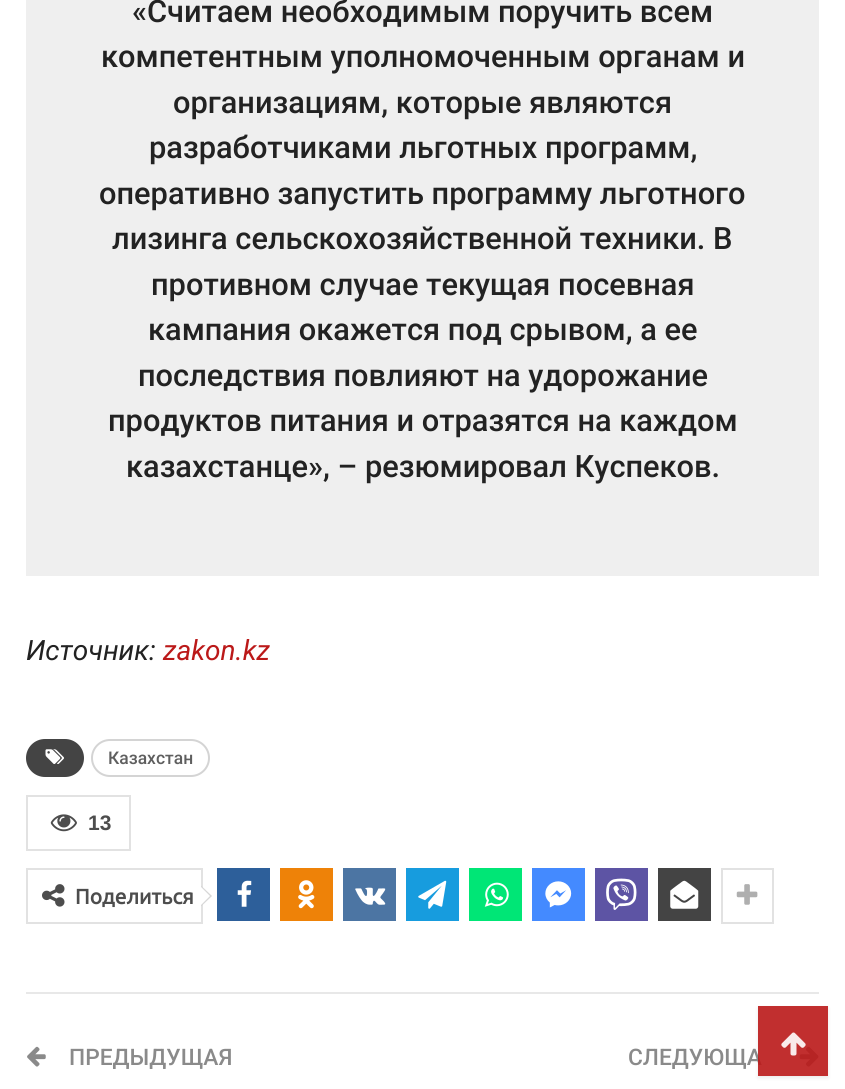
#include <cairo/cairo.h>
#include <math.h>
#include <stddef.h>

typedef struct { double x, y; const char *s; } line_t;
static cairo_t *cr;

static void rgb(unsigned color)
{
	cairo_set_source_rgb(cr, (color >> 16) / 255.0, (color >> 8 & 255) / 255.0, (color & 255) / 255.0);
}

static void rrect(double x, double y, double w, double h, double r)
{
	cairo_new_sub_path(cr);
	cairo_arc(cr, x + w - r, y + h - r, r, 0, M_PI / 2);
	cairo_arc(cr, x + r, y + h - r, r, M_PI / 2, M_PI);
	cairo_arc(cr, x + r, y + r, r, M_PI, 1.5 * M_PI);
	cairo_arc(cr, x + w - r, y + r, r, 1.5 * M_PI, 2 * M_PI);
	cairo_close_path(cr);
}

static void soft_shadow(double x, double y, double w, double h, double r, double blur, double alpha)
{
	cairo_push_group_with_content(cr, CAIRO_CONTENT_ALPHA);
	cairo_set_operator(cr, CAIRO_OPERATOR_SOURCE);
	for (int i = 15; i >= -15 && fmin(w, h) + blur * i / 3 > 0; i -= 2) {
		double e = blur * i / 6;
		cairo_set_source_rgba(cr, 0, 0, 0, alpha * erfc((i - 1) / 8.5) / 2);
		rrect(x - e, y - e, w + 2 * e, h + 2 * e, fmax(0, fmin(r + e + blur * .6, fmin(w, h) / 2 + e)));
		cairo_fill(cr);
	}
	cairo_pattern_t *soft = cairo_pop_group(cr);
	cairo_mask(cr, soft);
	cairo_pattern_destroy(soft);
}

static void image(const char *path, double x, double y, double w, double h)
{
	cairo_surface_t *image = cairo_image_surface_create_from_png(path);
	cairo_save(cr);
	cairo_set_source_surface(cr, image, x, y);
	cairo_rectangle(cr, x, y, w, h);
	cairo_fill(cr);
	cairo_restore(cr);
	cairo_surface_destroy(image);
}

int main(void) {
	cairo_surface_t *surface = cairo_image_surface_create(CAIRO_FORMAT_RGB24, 845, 1089);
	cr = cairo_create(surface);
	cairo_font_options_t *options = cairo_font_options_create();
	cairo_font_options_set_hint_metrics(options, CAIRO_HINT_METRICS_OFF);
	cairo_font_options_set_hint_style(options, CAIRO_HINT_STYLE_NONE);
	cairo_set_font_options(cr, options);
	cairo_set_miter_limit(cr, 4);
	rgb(0xffffff);
	cairo_paint(cr);
	rgb(0xefefef);
	cairo_rectangle(cr, 26, 0, 793, 576);
	cairo_fill(cr);
	rgb(0x444444);
	rrect(27, 740, 56, 36, 18);
	cairo_fill_preserve(cr);
	cairo_stroke(cr);
	image("img/1.png", 45, 749, 19, 15);
	rrect(92, 740, 117, 36, 18);
	rgb(0xd4d4d4);
	cairo_stroke(cr);
	cairo_rectangle(cr, 27, 796, 103, 54);
	rgb(0xe2e2e2);
	cairo_stroke(cr);
	image("img/2.png", 50, 814, 27, 18);
	cairo_rectangle(cr, 27, 869, 175, 54);
	cairo_stroke(cr);
	image("img/3.png", 42, 884, 23, 23);
	rgb(0xd7d7d7);
	cairo_new_path(cr);
	cairo_move_to(cr, 201, 906.5);
	cairo_line_to(cr, 201, 885.5);
	cairo_line_to(cr, 212, 896);
	cairo_close_path(cr);
	cairo_fill(cr);
	rgb(0xffffff);
	cairo_new_path(cr);
	cairo_move_to(cr, 201, 905);
	cairo_line_to(cr, 201, 887);
	cairo_line_to(cr, 210, 896);
	cairo_close_path(cr);
	cairo_fill(cr);
	rgb(0x2d5f9a);
	cairo_rectangle(cr, 217, 868, 53, 53);
	cairo_fill(cr);
	image("img/4.png", 237, 880, 15, 27);
	rgb(0xee8208);
	cairo_rectangle(cr, 280, 868, 53, 53);
	cairo_fill(cr);
	image("img/5.png", 298, 880, 17, 29);
	rgb(0x4c75a3);
	cairo_rectangle(cr, 343, 868, 53, 53);
	cairo_fill(cr);
	image("img/6.png", 355, 887, 31, 18);
	rgb(0x179cde);
	cairo_rectangle(cr, 406, 868, 53, 53);
	cairo_fill(cr);
	image("img/7.png", 418, 880, 29, 29);
	rgb(0x00e676);
	cairo_rectangle(cr, 469, 868, 53, 53);
	cairo_fill(cr);
	image("img/8.png", 484, 882, 25, 25);
	rgb(0x448aff);
	cairo_rectangle(cr, 532, 868, 53, 53);
	cairo_fill(cr);
	image("img/9.png", 545, 881, 27, 27);
	rgb(0x5d54a4);
	cairo_rectangle(cr, 595, 868, 53, 53);
	cairo_fill(cr);
	image("img/10.png", 606, 878, 31, 32);
	rgb(0x444444);
	cairo_rectangle(cr, 658, 868, 53, 53);
	cairo_fill(cr);
	image("img/11.png", 670, 880, 29, 29);
	cairo_rectangle(cr, 722, 869, 51, 54);
	rgb(0xe2e2e2);
	cairo_stroke(cr);
	image("img/12.png", 736, 884, 22, 21);
	rgb(0xe8e8e8);
	cairo_rectangle(cr, 26, 992, 793, 2);
	cairo_fill(cr);
	image("img/13.png", 27, 1046, 19, 21);
	image("img/14.png", 799, 1046, 20, 21);
	cairo_save(cr);
	cairo_set_fill_rule(cr, CAIRO_FILL_RULE_EVEN_ODD);
	cairo_new_path(cr);
	cairo_move_to(cr, 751, 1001);
	cairo_line_to(cr, 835, 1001);
	cairo_line_to(cr, 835, 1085);
	cairo_line_to(cr, 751, 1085);
	cairo_close_path(cr);
	cairo_move_to(cr, 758, 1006);
	cairo_line_to(cr, 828, 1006);
	cairo_line_to(cr, 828, 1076);
	cairo_line_to(cr, 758, 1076);
	cairo_close_path(cr);
	cairo_clip(cr);
	rgb(0x000000);
	soft_shadow(758, 1008, 70, 70, 0, 2, 0.08);
	cairo_restore(cr);
	cairo_select_font_face(cr, "Roboto Medium", CAIRO_FONT_SLANT_NORMAL, CAIRO_FONT_WEIGHT_NORMAL);
	cairo_set_font_size(cr, 30.8);
	rgb(0x222222);
	{
		static const line_t items[] = {
			{132, 22, "«Считаем необходимым поручить всем"},
			{101, 67, "компетентным уполномоченным органам и"},
			{173, 113, "организациям, которые являются"},
			{149, 158, "разработчиками льготных программ,"},
			{99, 204, "оперативно запустить программу льготного"},
			{112, 249, "лизинга сельскохозяйственной техники. В"},
			{151, 295, "противном случае текущая посевная"},
			{148, 340, "кампания окажется под срывом, а ее"},
			{138, 386, "последствия повлияют на удорожание"},
			{108, 431, "продуктов питания и отразятся на каждом"},
			{126, 477, "казахстанце», – резюмировал Куспеков."},
		};
		for (size_t i = 0; i < sizeof items / sizeof *items; i++) {
			cairo_move_to(cr, items[i].x, items[i].y);
			cairo_show_text(cr, items[i].s);
		}
	}
	cairo_select_font_face(cr, "Roboto", CAIRO_FONT_SLANT_ITALIC, CAIRO_FONT_WEIGHT_NORMAL);
	cairo_set_font_size(cr, 28);
	cairo_move_to(cr, 26, 660);
	cairo_show_text(cr, "Источник:");
	rgb(0xbb1919);
	cairo_move_to(cr, 163, 660);
	cairo_show_text(cr, "zakon.kz");
	cairo_select_font_face(cr, "Roboto Medium", CAIRO_FONT_SLANT_NORMAL, CAIRO_FONT_WEIGHT_NORMAL);
	cairo_set_font_size(cr, 17.5);
	rgb(0x5f5f5f);
	cairo_move_to(cr, 108, 764);
	cairo_show_text(cr, "Казахстан");
	cairo_select_font_face(cr, "Liberation Sans", CAIRO_FONT_SLANT_NORMAL, CAIRO_FONT_WEIGHT_BOLD);
	cairo_set_font_size(cr, 21);
	rgb(0x4d4d4d);
	cairo_move_to(cr, 88, 830);
	cairo_show_text(cr, "13");
	cairo_select_font_face(cr, "Ubuntu", CAIRO_FONT_SLANT_NORMAL, CAIRO_FONT_WEIGHT_BOLD);
	cairo_move_to(cr, 75, 904);
	cairo_show_text(cr, "Поделиться");
	cairo_select_font_face(cr, "Roboto Medium", CAIRO_FONT_SLANT_NORMAL, CAIRO_FONT_WEIGHT_NORMAL);
	cairo_set_font_size(cr, 22.75);
	rgb(0x8a8a8a);
	cairo_move_to(cr, 69, 1065);
	cairo_show_text(cr, "ПРЕДЫДУЩАЯ");
	cairo_move_to(cr, 628, 1065);
	cairo_show_text(cr, "СЛЕДУЮЩА");
	cairo_set_source_rgba(cr, 0.733, 0.098, 0.098, 0.9);
	cairo_rectangle(cr, 758, 1006, 70, 70);
	cairo_fill(cr);
	image("img/15.png", 781, 1032, 25, 24);
	cairo_surface_write_to_png(surface, "page.png");
	cairo_font_options_destroy(options);
	cairo_destroy(cr);
	cairo_surface_destroy(surface);
	return 0;
}
